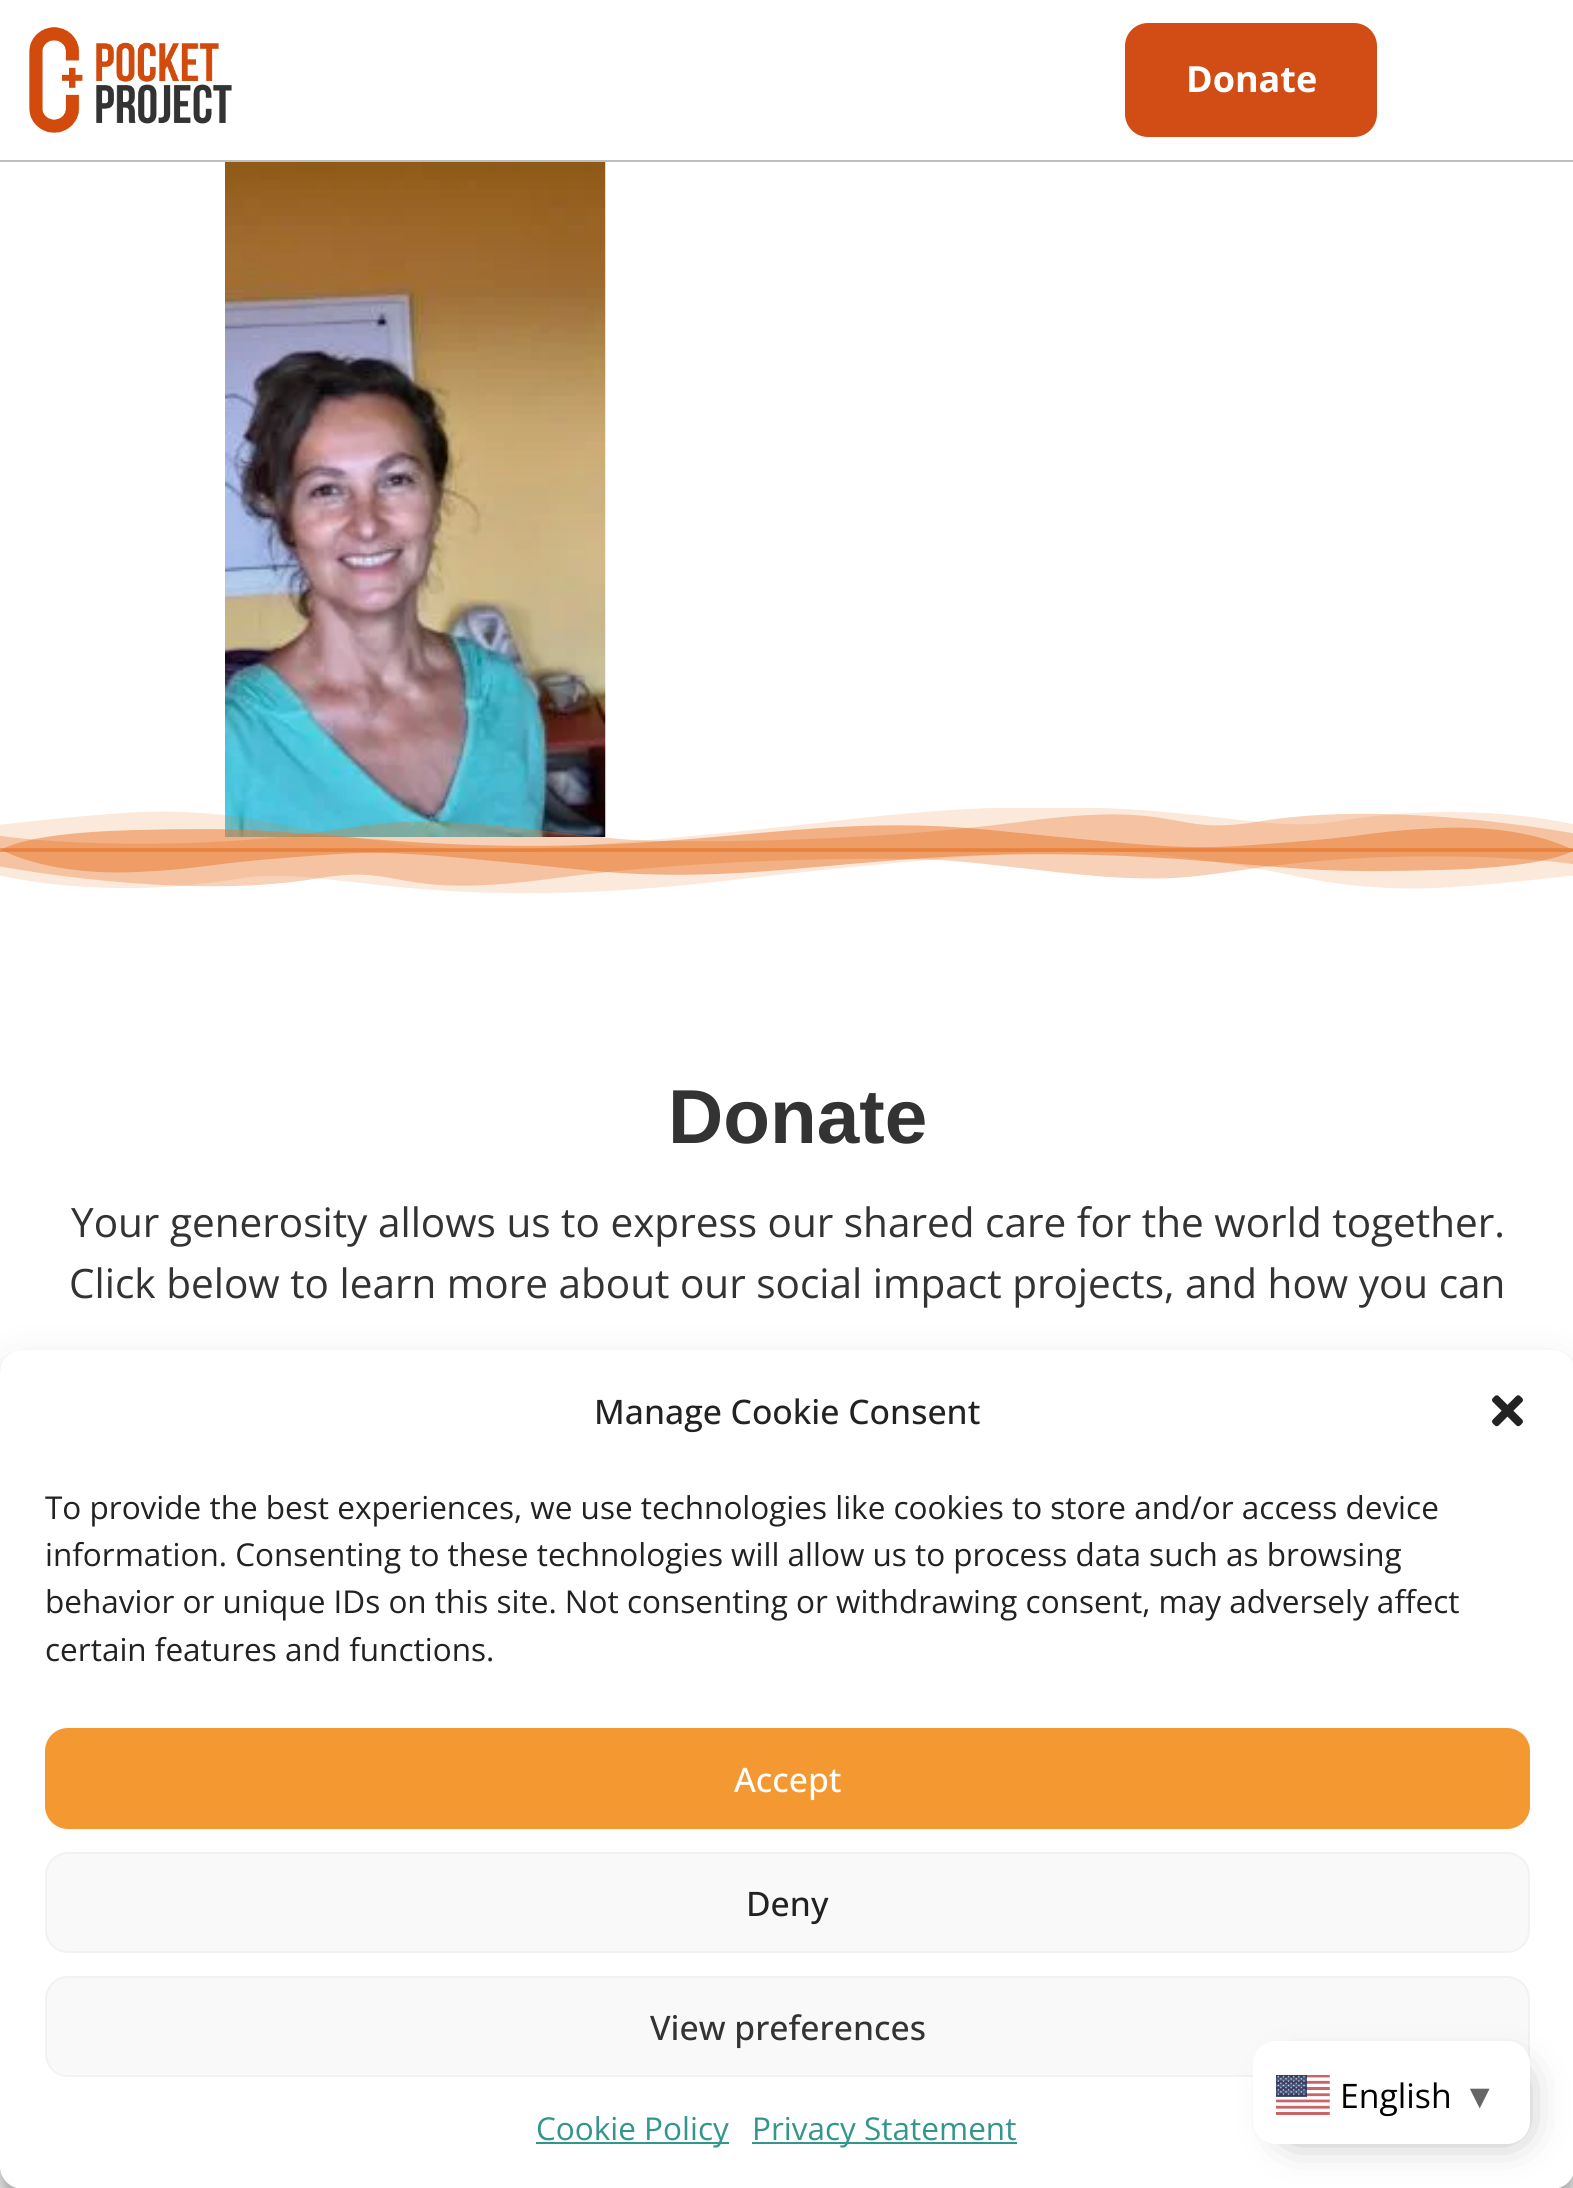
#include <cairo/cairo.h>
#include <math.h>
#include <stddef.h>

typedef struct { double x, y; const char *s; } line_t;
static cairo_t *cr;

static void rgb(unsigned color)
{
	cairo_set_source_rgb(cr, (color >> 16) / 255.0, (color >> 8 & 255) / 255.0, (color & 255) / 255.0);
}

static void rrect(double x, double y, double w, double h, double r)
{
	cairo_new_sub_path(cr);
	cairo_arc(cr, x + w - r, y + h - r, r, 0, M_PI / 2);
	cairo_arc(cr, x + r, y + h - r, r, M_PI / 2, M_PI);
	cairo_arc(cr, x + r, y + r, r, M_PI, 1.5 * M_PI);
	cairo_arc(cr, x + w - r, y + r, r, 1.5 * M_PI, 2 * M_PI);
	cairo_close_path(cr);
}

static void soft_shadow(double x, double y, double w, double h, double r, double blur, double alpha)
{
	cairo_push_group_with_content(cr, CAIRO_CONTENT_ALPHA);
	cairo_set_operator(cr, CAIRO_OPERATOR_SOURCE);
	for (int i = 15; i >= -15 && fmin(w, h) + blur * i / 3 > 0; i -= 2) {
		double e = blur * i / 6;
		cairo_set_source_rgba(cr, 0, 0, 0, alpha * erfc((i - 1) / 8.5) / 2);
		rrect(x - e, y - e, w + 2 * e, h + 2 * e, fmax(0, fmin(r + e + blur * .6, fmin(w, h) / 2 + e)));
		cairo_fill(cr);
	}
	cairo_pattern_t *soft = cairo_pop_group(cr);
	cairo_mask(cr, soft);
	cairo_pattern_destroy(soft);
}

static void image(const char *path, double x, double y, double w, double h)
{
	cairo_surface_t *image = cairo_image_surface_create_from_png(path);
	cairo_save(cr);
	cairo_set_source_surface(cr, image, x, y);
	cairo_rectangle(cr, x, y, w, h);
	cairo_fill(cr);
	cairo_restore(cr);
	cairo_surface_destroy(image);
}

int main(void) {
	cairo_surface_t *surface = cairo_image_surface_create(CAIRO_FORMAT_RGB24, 1573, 2188);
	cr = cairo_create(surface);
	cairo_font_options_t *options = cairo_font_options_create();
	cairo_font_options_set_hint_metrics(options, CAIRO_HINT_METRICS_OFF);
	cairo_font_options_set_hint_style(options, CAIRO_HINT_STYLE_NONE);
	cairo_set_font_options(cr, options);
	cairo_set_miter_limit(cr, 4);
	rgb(0xffffff);
	cairo_paint(cr);
	rgb(0xbebebe);
	cairo_rectangle(cr, 0, 160, 1573, 2);
	cairo_fill(cr);
	image("img/1.png", 29, 27, 203, 106);
	rgb(0xd24d16);
	rrect(1128.5, 26.5, 245, 107, 19.5);
	cairo_fill_preserve(cr);
	cairo_set_line_width(cr, 7);
	cairo_stroke(cr);
	image("img/2.png", 225, 162, 381, 675);
	image("img/3.png", 0, 808, 1573, 44);
	image("img/4.png", 0, 848, 1573, 45);
	rgb(0x000000);
	soft_shadow(0, 1364, 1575, 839, 23, 7, 0.23);
	soft_shadow(0, 1373, 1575, 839, 23, 22.5, 0.19);
	rgb(0xffffff);
	rrect(0, 1350, 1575, 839, 23);
	cairo_fill(cr);
	image("img/5.png", 1492, 1395, 31, 32);
	rgb(0xf49832);
	rrect(46, 1729, 1483, 99, 22);
	cairo_fill_preserve(cr);
	cairo_set_line_width(cr, 2);
	cairo_stroke(cr);
	rgb(0xf9f9f9);
	rrect(46, 1853, 1483, 99, 22);
	cairo_fill_preserve(cr);
	rgb(0xf2f2f2);
	cairo_stroke(cr);
	rgb(0xf9f9f9);
	rrect(46, 1977, 1483, 99, 22);
	cairo_fill_preserve(cr);
	rgb(0xf2f2f2);
	cairo_stroke(cr);
	rgb(0x33958c);
	cairo_rectangle(cr, 536, 2142, 193, 2);
	cairo_fill(cr);
	cairo_rectangle(cr, 752, 2142, 265, 2);
	cairo_fill(cr);
	rgb(0x000000);
	soft_shadow(1292, 2079, 222, 50, 0, 22.5, 0.5);
	rgb(0xffffff);
	rrect(1253, 2041, 277, 103, 23);
	cairo_fill(cr);
	image("img/6.png", 1276, 2075, 54, 40);
	cairo_select_font_face(cr, "Open Sans", CAIRO_FONT_SLANT_NORMAL, CAIRO_FONT_WEIGHT_BOLD);
	cairo_set_font_size(cr, 36);
	cairo_move_to(cr, 1186, 92);
	cairo_show_text(cr, "Donate");
	cairo_select_font_face(cr, "Liberation Sans", CAIRO_FONT_SLANT_NORMAL, CAIRO_FONT_WEIGHT_BOLD);
	cairo_set_font_size(cr, 76.5);
	rgb(0x343333);
	cairo_move_to(cr, 668, 1143);
	cairo_show_text(cr, "Donate");
	cairo_select_font_face(cr, "Open Sans", CAIRO_FONT_SLANT_NORMAL, CAIRO_FONT_WEIGHT_NORMAL);
	cairo_set_font_size(cr, 40.5);
	cairo_move_to(cr, 71, 1237);
	cairo_show_text(cr, "Your generosity allows us to express our shared care for the world together.");
	cairo_move_to(cr, 69, 1298);
	cairo_show_text(cr, "Click below to learn more about our social impact projects, and how you can");
	cairo_select_font_face(cr, "Open Sans Medium", CAIRO_FONT_SLANT_NORMAL, CAIRO_FONT_WEIGHT_NORMAL);
	cairo_set_font_size(cr, 33.75);
	rgb(0x222222);
	cairo_move_to(cr, 594, 1424);
	cairo_show_text(cr, "Manage Cookie Consent");
	cairo_select_font_face(cr, "Open Sans", CAIRO_FONT_SLANT_NORMAL, CAIRO_FONT_WEIGHT_NORMAL);
	cairo_set_font_size(cr, 31.5);
	{
		static const line_t items[] = {
			{45, 1519, "To provide the best experiences, we use technologies like cookies to store and/or access device"},
			{45, 1566, "information. Consenting to these technologies will allow us to process data such as browsing"},
			{45, 1613, "behavior or unique IDs on this site. Not consenting or withdrawing consent, may adversely affect"},
			{45, 1661, "certain features and functions."},
		};
		for (size_t i = 0; i < sizeof items / sizeof *items; i++) {
			cairo_move_to(cr, items[i].x, items[i].y);
			cairo_show_text(cr, items[i].s);
		}
	}
	cairo_select_font_face(cr, "Open Sans Medium", CAIRO_FONT_SLANT_NORMAL, CAIRO_FONT_WEIGHT_NORMAL);
	cairo_set_font_size(cr, 33.75);
	rgb(0xffffff);
	cairo_move_to(cr, 734, 1792);
	cairo_show_text(cr, "Accept");
	rgb(0x222222);
	cairo_move_to(cr, 746, 1916);
	cairo_show_text(cr, "Deny");
	rgb(0x343333);
	cairo_move_to(cr, 650, 2040);
	cairo_show_text(cr, "View preferences");
	cairo_select_font_face(cr, "Open Sans", CAIRO_FONT_SLANT_NORMAL, CAIRO_FONT_WEIGHT_NORMAL);
	cairo_set_font_size(cr, 31.5);
	rgb(0x33958c);
	cairo_move_to(cr, 536, 2140);
	cairo_show_text(cr, "Cookie Policy");
	cairo_move_to(cr, 752, 2140);
	cairo_show_text(cr, "Privacy Statement");
	cairo_set_font_size(cr, 33.75);
	rgb(0x000000);
	cairo_move_to(cr, 1340, 2108);
	cairo_show_text(cr, "English");
	cairo_select_font_face(cr, "Liberation Sans", CAIRO_FONT_SLANT_NORMAL, CAIRO_FONT_WEIGHT_BOLD);
	rgb(0x666666);
	cairo_move_to(cr, 1463, 2108);
	cairo_show_text(cr, "▼");
	cairo_surface_write_to_png(surface, "page.png");
	cairo_font_options_destroy(options);
	cairo_destroy(cr);
	cairo_surface_destroy(surface);
	return 0;
}
